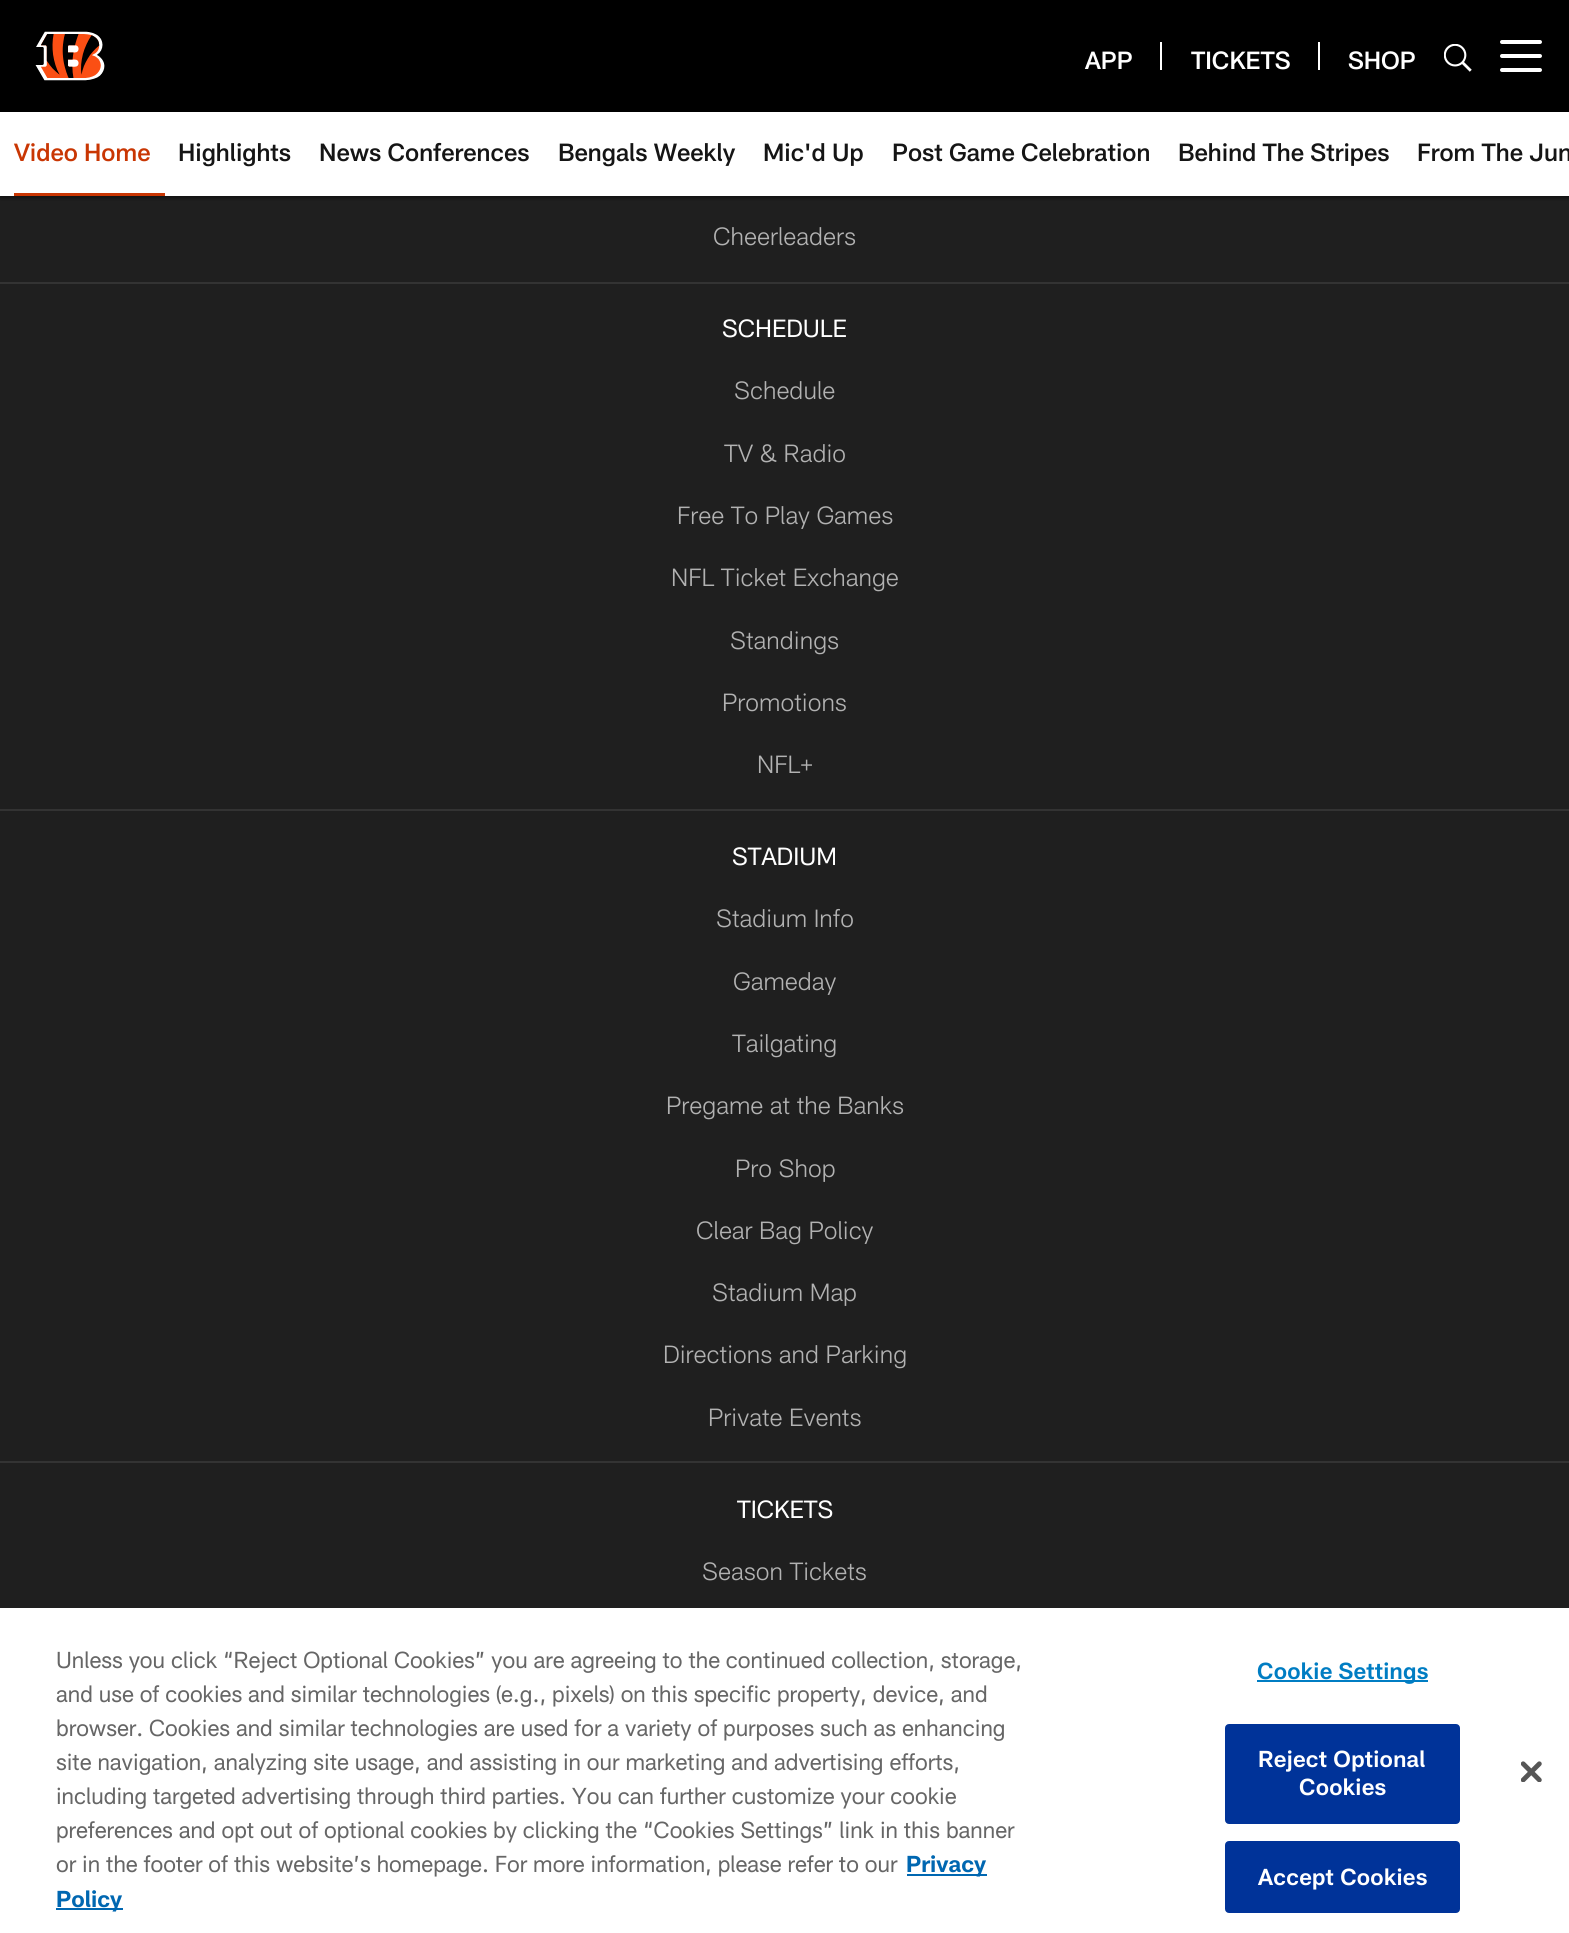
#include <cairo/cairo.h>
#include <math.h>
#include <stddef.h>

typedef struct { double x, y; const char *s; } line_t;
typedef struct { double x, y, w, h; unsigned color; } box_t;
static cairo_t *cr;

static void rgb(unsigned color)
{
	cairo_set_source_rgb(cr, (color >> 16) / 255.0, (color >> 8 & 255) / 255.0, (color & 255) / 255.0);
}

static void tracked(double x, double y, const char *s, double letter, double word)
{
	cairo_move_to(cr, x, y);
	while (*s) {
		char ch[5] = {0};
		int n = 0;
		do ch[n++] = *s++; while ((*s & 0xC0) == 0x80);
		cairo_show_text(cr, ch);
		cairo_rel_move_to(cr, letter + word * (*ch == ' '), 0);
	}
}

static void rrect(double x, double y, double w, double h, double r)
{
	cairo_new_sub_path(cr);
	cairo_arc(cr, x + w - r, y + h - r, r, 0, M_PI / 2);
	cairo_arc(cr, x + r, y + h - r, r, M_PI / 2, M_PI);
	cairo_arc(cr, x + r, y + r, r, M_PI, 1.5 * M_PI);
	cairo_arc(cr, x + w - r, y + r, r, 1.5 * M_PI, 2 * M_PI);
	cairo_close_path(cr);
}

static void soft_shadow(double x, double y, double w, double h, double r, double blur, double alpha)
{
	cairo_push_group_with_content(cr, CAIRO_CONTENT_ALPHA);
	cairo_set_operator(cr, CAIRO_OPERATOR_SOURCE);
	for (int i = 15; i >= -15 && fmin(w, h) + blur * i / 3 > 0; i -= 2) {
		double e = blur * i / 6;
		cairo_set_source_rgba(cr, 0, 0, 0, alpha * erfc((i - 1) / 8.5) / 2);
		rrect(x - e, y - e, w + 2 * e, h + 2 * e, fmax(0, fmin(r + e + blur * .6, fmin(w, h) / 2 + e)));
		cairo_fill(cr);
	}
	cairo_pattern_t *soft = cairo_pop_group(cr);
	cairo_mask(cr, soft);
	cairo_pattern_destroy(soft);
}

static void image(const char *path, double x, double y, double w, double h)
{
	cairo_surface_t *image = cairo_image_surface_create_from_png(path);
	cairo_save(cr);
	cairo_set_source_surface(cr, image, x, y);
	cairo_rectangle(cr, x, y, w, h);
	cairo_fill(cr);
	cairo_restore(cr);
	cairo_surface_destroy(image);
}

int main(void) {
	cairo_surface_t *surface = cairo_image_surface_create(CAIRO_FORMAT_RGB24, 1569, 1933);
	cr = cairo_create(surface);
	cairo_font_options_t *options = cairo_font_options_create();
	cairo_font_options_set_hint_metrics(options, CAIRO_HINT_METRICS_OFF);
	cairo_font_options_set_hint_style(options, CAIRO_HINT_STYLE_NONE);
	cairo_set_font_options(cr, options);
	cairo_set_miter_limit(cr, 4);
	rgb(0x1f1f1f);
	cairo_paint(cr);
	rgb(0x000000);
	cairo_rectangle(cr, 0, 0, 1569, 112);
	cairo_fill(cr);
	image("img/1.png", 35, 31, 70, 50);
	rgb(0xffffff);
	cairo_rectangle(cr, 1160, 42, 2, 28);
	cairo_fill(cr);
	cairo_rectangle(cr, 1318, 42, 2, 28);
	cairo_fill(cr);
	image("img/2.png", 1444, 44, 28, 28);
	rrect(1500, 54, 42, 4, 2);
	cairo_fill(cr);
	rrect(1500, 40, 42, 4, 2);
	cairo_fill(cr);
	rrect(1500, 68, 42, 4, 2);
	cairo_fill(cr);
	rgb(0x000000);
	soft_shadow(0, 114, 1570, 84, 0, 2, 0.47);
	{
		static const box_t items[] = {
			{0, 112, 1569, 84, 0xffffff},
			{14, 193, 151, 3, 0xc93603},
			{0, 282, 1569, 2, 0x333333},
			{0, 809, 1569, 2, 0x333333},
			{0, 1461, 1569, 2, 0x333333},
			{0, 1608, 1569, 325, 0xffffff},
			{907, 1874, 80, 2, 0x0067b1},
			{56, 1908, 67, 2, 0x0067b1},
			{1257, 1680, 171, 2, 0x007dc3},
		};
		for (size_t i = 0; i < sizeof items / sizeof *items; i++) {
			rgb(items[i].color);
			cairo_rectangle(cr, items[i].x, items[i].y, items[i].w, items[i].h);
			cairo_fill(cr);
		}
	}
	rgb(0x003399);
	rrect(1226, 1725, 233, 98, 3);
	cairo_fill_preserve(cr);
	cairo_stroke(cr);
	rrect(1226, 1842, 233, 70, 3);
	cairo_fill_preserve(cr);
	cairo_stroke(cr);
	image("img/3.png", 1521, 1761, 21, 21);
	cairo_select_font_face(cr, "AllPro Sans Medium", CAIRO_FONT_SLANT_NORMAL, CAIRO_FONT_WEIGHT_NORMAL);
	cairo_set_font_size(cr, 24.5);
	rgb(0xffffff);
	{
		static const line_t items[] = {
			{1085, 69, "APP"},
			{1191, 69, "TICKETS"},
			{1348, 69, "SHOP"},
		};
		for (size_t i = 0; i < sizeof items / sizeof *items; i++) {
			cairo_move_to(cr, items[i].x, items[i].y);
			cairo_show_text(cr, items[i].s);
		}
	}
	rgb(0xc93603);
	cairo_move_to(cr, 14, 161);
	cairo_show_text(cr, "Video Home");
	rgb(0x151515);
	{
		static const line_t items[] = {
			{178, 161, "Highlights"},
			{319, 161, "News Conferences"},
			{558, 161, "Bengals Weekly"},
			{763, 161, "Mic'd Up"},
			{892, 161, "Post Game Celebration"},
			{1178, 161, "Behind The Stripes"},
			{1417, 161, "From The Jun"},
		};
		for (size_t i = 0; i < sizeof items / sizeof *items; i++) {
			cairo_move_to(cr, items[i].x, items[i].y);
			cairo_show_text(cr, items[i].s);
		}
	}
	cairo_select_font_face(cr, "AllPro Sans Light", CAIRO_FONT_SLANT_NORMAL, CAIRO_FONT_WEIGHT_NORMAL);
	rgb(0xb2b2b2);
	cairo_move_to(cr, 713, 245);
	cairo_show_text(cr, "Cheerleaders");
	cairo_select_font_face(cr, "AllPro Sans", CAIRO_FONT_SLANT_NORMAL, CAIRO_FONT_WEIGHT_NORMAL);
	rgb(0xffffff);
	cairo_move_to(cr, 722, 337);
	cairo_show_text(cr, "SCHEDULE");
	cairo_select_font_face(cr, "AllPro Sans Light", CAIRO_FONT_SLANT_NORMAL, CAIRO_FONT_WEIGHT_NORMAL);
	rgb(0xb2b2b2);
	{
		static const line_t items[] = {
			{734, 399, "Schedule"},
			{724, 462, "TV & Radio"},
			{677, 524, "Free To Play Games"},
			{671, 586, "NFL Ticket Exchange"},
			{730, 649, "Standings"},
			{722, 711, "Promotions"},
			{757, 773, "NFL+"},
		};
		for (size_t i = 0; i < sizeof items / sizeof *items; i++) {
			cairo_move_to(cr, items[i].x, items[i].y);
			cairo_show_text(cr, items[i].s);
		}
	}
	cairo_select_font_face(cr, "AllPro Sans", CAIRO_FONT_SLANT_NORMAL, CAIRO_FONT_WEIGHT_NORMAL);
	rgb(0xffffff);
	cairo_move_to(cr, 732, 865);
	cairo_show_text(cr, "STADIUM");
	cairo_select_font_face(cr, "AllPro Sans Light", CAIRO_FONT_SLANT_NORMAL, CAIRO_FONT_WEIGHT_NORMAL);
	rgb(0xb2b2b2);
	{
		static const line_t items[] = {
			{716, 927, "Stadium Info"},
			{733, 990, "Gameday"},
			{732, 1052, "Tailgating"},
			{666, 1114, "Pregame at the Banks"},
			{735, 1177, "Pro Shop"},
			{696, 1239, "Clear Bag Policy"},
			{712, 1301, "Stadium Map"},
			{663, 1363, "Directions and Parking"},
			{708, 1426, "Private Events"},
		};
		for (size_t i = 0; i < sizeof items / sizeof *items; i++) {
			cairo_move_to(cr, items[i].x, items[i].y);
			cairo_show_text(cr, items[i].s);
		}
	}
	cairo_select_font_face(cr, "AllPro Sans", CAIRO_FONT_SLANT_NORMAL, CAIRO_FONT_WEIGHT_NORMAL);
	rgb(0xffffff);
	cairo_move_to(cr, 737, 1518);
	cairo_show_text(cr, "TICKETS");
	cairo_select_font_face(cr, "AllPro Sans Light", CAIRO_FONT_SLANT_NORMAL, CAIRO_FONT_WEIGHT_NORMAL);
	rgb(0xb2b2b2);
	cairo_move_to(cr, 702, 1580);
	cairo_show_text(cr, "Season Tickets");
	cairo_select_font_face(cr, "AllPro Sans", CAIRO_FONT_SLANT_NORMAL, CAIRO_FONT_WEIGHT_NORMAL);
	cairo_set_font_size(cr, 22.75);
	rgb(0x666666);
	{
		static const line_t items[] = {
			{56, 1668, "Unless you click “Reject Optional Cookies” you are agreeing to the continued collection, storage,"},
			{56, 1702, "and use of cookies and similar technologies (e.g., pixels) on this specific property, device, and"},
			{56, 1736, "browser. Cookies and similar technologies are used for a variety of purposes such as enhancing"},
			{56, 1770, "site navigation, analyzing site usage, and assisting in our marketing and advertising efforts,"},
			{56, 1804, "including targeted advertising through third parties. You can further customize your cookie"},
			{56, 1838, "preferences and opt out of optional cookies by clicking the “Cookies Settings” link in this banner"},
			{56, 1872, "or in the footer of this website’s homepage. For more information, please refer to our"},
		};
		for (size_t i = 0; i < sizeof items / sizeof *items; i++) {
			cairo_move_to(cr, items[i].x, items[i].y);
			cairo_show_text(cr, items[i].s);
		}
	}
	cairo_select_font_face(cr, "AllPro Sans", CAIRO_FONT_SLANT_NORMAL, CAIRO_FONT_WEIGHT_BOLD);
	rgb(0x0067b1);
	cairo_move_to(cr, 906, 1872);
	cairo_show_text(cr, "Privacy");
	cairo_move_to(cr, 56, 1907);
	cairo_show_text(cr, "Policy");
	cairo_select_font_face(cr, "AllPro Sans SemiBold", CAIRO_FONT_SLANT_NORMAL, CAIRO_FONT_WEIGHT_NORMAL);
	rgb(0x007dc3);
	tracked(1257, 1679, "Cookie Settings", 0.25, 0);
	rgb(0xffffff);
	{
		static const line_t items[] = {
			{1258, 1767, "Reject Optional"},
			{1299, 1795, "Cookies"},
			{1258, 1885, "Accept Cookies"},
		};
		for (size_t i = 0; i < sizeof items / sizeof *items; i++) {
			tracked(items[i].x, items[i].y, items[i].s, 0.25, 0);
		}
	}
	cairo_surface_write_to_png(surface, "page.png");
	cairo_font_options_destroy(options);
	cairo_destroy(cr);
	cairo_surface_destroy(surface);
	return 0;
}
